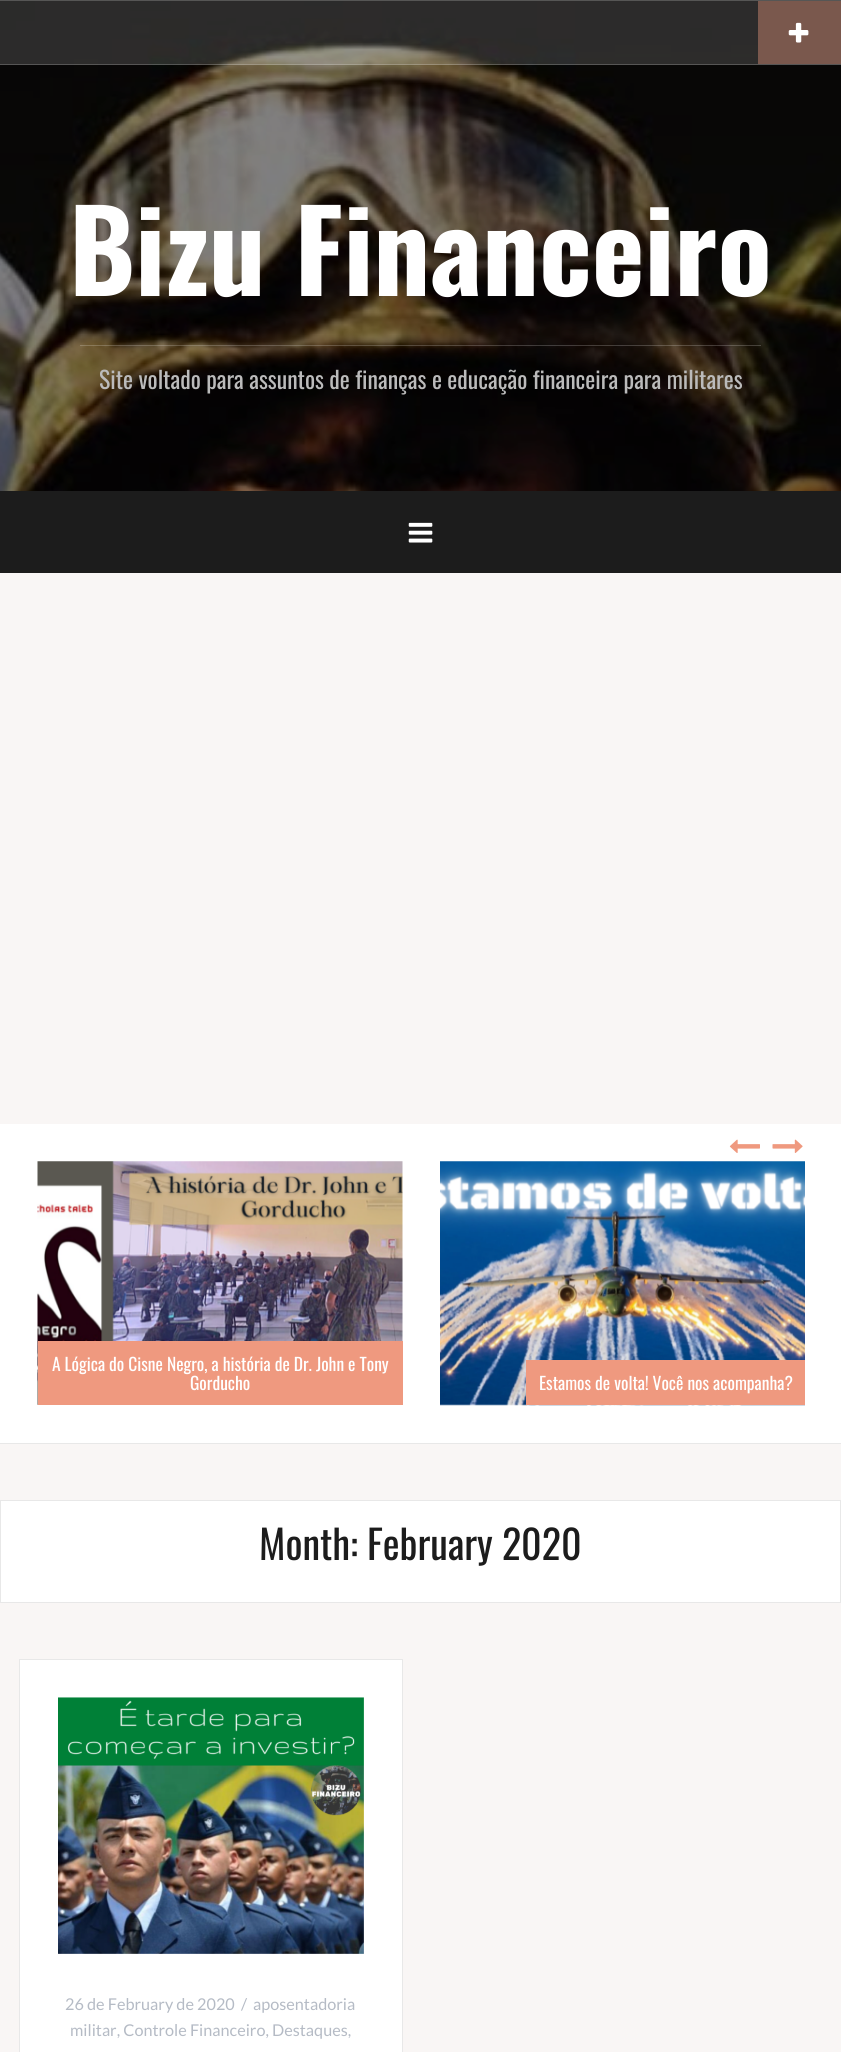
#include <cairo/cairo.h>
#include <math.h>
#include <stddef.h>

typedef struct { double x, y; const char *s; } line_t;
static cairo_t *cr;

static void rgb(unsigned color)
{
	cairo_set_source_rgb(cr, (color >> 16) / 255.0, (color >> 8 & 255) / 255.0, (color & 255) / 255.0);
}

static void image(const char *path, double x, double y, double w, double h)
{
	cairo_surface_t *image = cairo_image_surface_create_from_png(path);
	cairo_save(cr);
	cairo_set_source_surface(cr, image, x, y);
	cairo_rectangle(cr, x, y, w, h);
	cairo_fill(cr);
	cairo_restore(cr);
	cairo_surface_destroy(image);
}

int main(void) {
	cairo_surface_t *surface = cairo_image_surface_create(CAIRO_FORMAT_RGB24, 841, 2052);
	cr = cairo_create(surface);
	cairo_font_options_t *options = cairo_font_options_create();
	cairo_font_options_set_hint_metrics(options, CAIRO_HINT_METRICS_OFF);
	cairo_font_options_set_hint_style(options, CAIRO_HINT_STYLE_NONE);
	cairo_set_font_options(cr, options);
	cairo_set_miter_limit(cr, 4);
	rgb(0xf9f6f5);
	cairo_paint(cr);
	image("img/1.png", 0, 1, 841, 490);
	cairo_set_source_rgba(cr, 1, 1, 1, 0.15);
	cairo_rectangle(cr, 0, 1, 841, 64);
	cairo_fill(cr);
	rgb(0x565655);
	cairo_rectangle(cr, 0, 0, 841, 1);
	cairo_fill(cr);
	cairo_set_source_rgba(cr, 1, 1, 1, 0.2);
	cairo_rectangle(cr, 0, 64, 841, 1);
	cairo_fill(cr);
	rgb(0x7a584d);
	cairo_rectangle(cr, 758, 1, 83, 63);
	cairo_fill(cr);
	image("img/2.png", 788, 22, 21, 21);
	cairo_set_source_rgba(cr, 1, 1, 1, 0.2);
	cairo_rectangle(cr, 80, 345, 681, 1);
	cairo_fill(cr);
	rgb(0x1c1c1c);
	cairo_rectangle(cr, 0, 491, 841, 82);
	cairo_fill(cr);
	image("img/3.png", 408, 522, 25, 21);
	rgb(0xffffff);
	cairo_rectangle(cr, 0, 1124, 841, 319);
	cairo_fill(cr);
	rgb(0xe8e8e8);
	cairo_rectangle(cr, 0, 1443, 841, 1);
	cairo_fill(cr);
	image("img/4.png", 729, 1139, 31, 14);
	image("img/5.png", 772, 1139, 31, 14);
	image("img/6.png", 37, 1161, 366, 244);
	rgb(0xef997f);
	cairo_rectangle(cr, 38, 1341, 365, 64);
	cairo_fill(cr);
	image("img/7.png", 440, 1161, 365, 245);
	cairo_rectangle(cr, 526, 1360, 279, 45);
	cairo_fill(cr);
	rgb(0xffffff);
	cairo_rectangle(cr, 0.5, 1500.5, 840, 102);
	cairo_fill_preserve(cr);
	rgb(0xe8e8e8);
	cairo_set_line_width(cr, 1);
	cairo_stroke(cr);
	rgb(0xffffff);
	cairo_rectangle(cr, 19.5, 1659.5, 383, 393);
	cairo_fill_preserve(cr);
	rgb(0xe8e8e8);
	cairo_stroke(cr);
	image("img/8.png", 58, 1697, 306, 257);
	cairo_select_font_face(cr, "Oswald", CAIRO_FONT_SLANT_NORMAL, CAIRO_FONT_WEIGHT_BOLD);
	cairo_set_font_size(cr, 112.5);
	rgb(0xffffff);
	cairo_move_to(cr, 69, 296);
	cairo_show_text(cr, "Bizu Financeiro");
	cairo_select_font_face(cr, "Oswald", CAIRO_FONT_SLANT_NORMAL, CAIRO_FONT_WEIGHT_NORMAL);
	cairo_set_font_size(cr, 23.75);
	rgb(0xbbbbbb);
	cairo_move_to(cr, 99, 389);
	cairo_show_text(cr, "Site voltado para assuntos de finanças e educação financeira para militares");
	cairo_set_font_size(cr, 17.5);
	rgb(0xffffff);
	{
		static const line_t items[] = {
			{52, 1371, "A Lógica do Cisne Negro, a história de Dr. John e Tony"},
			{190, 1390, "Gorducho"},
			{539, 1390, "Estamos de volta! Você nos acompanha?"},
		};
		for (size_t i = 0; i < sizeof items / sizeof *items; i++) {
			cairo_move_to(cr, items[i].x, items[i].y);
			cairo_show_text(cr, items[i].s);
		}
	}
	cairo_set_font_size(cr, 40);
	rgb(0x1c1c1c);
	cairo_move_to(cr, 259, 1560);
	cairo_show_text(cr, "Month: February 2020");
	cairo_select_font_face(cr, "Lato", CAIRO_FONT_SLANT_NORMAL, CAIRO_FONT_WEIGHT_NORMAL);
	cairo_set_font_size(cr, 16.25);
	rgb(0xb5bbc5);
	{
		static const line_t items[] = {
			{65, 2010, "26 de February de 2020"},
			{241, 2010, "/"},
			{253, 2010, "aposentadoria"},
			{70, 2036, "militar, Controle Financeiro, Destaques,"},
		};
		for (size_t i = 0; i < sizeof items / sizeof *items; i++) {
			cairo_move_to(cr, items[i].x, items[i].y);
			cairo_show_text(cr, items[i].s);
		}
	}
	cairo_surface_write_to_png(surface, "page.png");
	cairo_font_options_destroy(options);
	cairo_destroy(cr);
	cairo_surface_destroy(surface);
	return 0;
}
